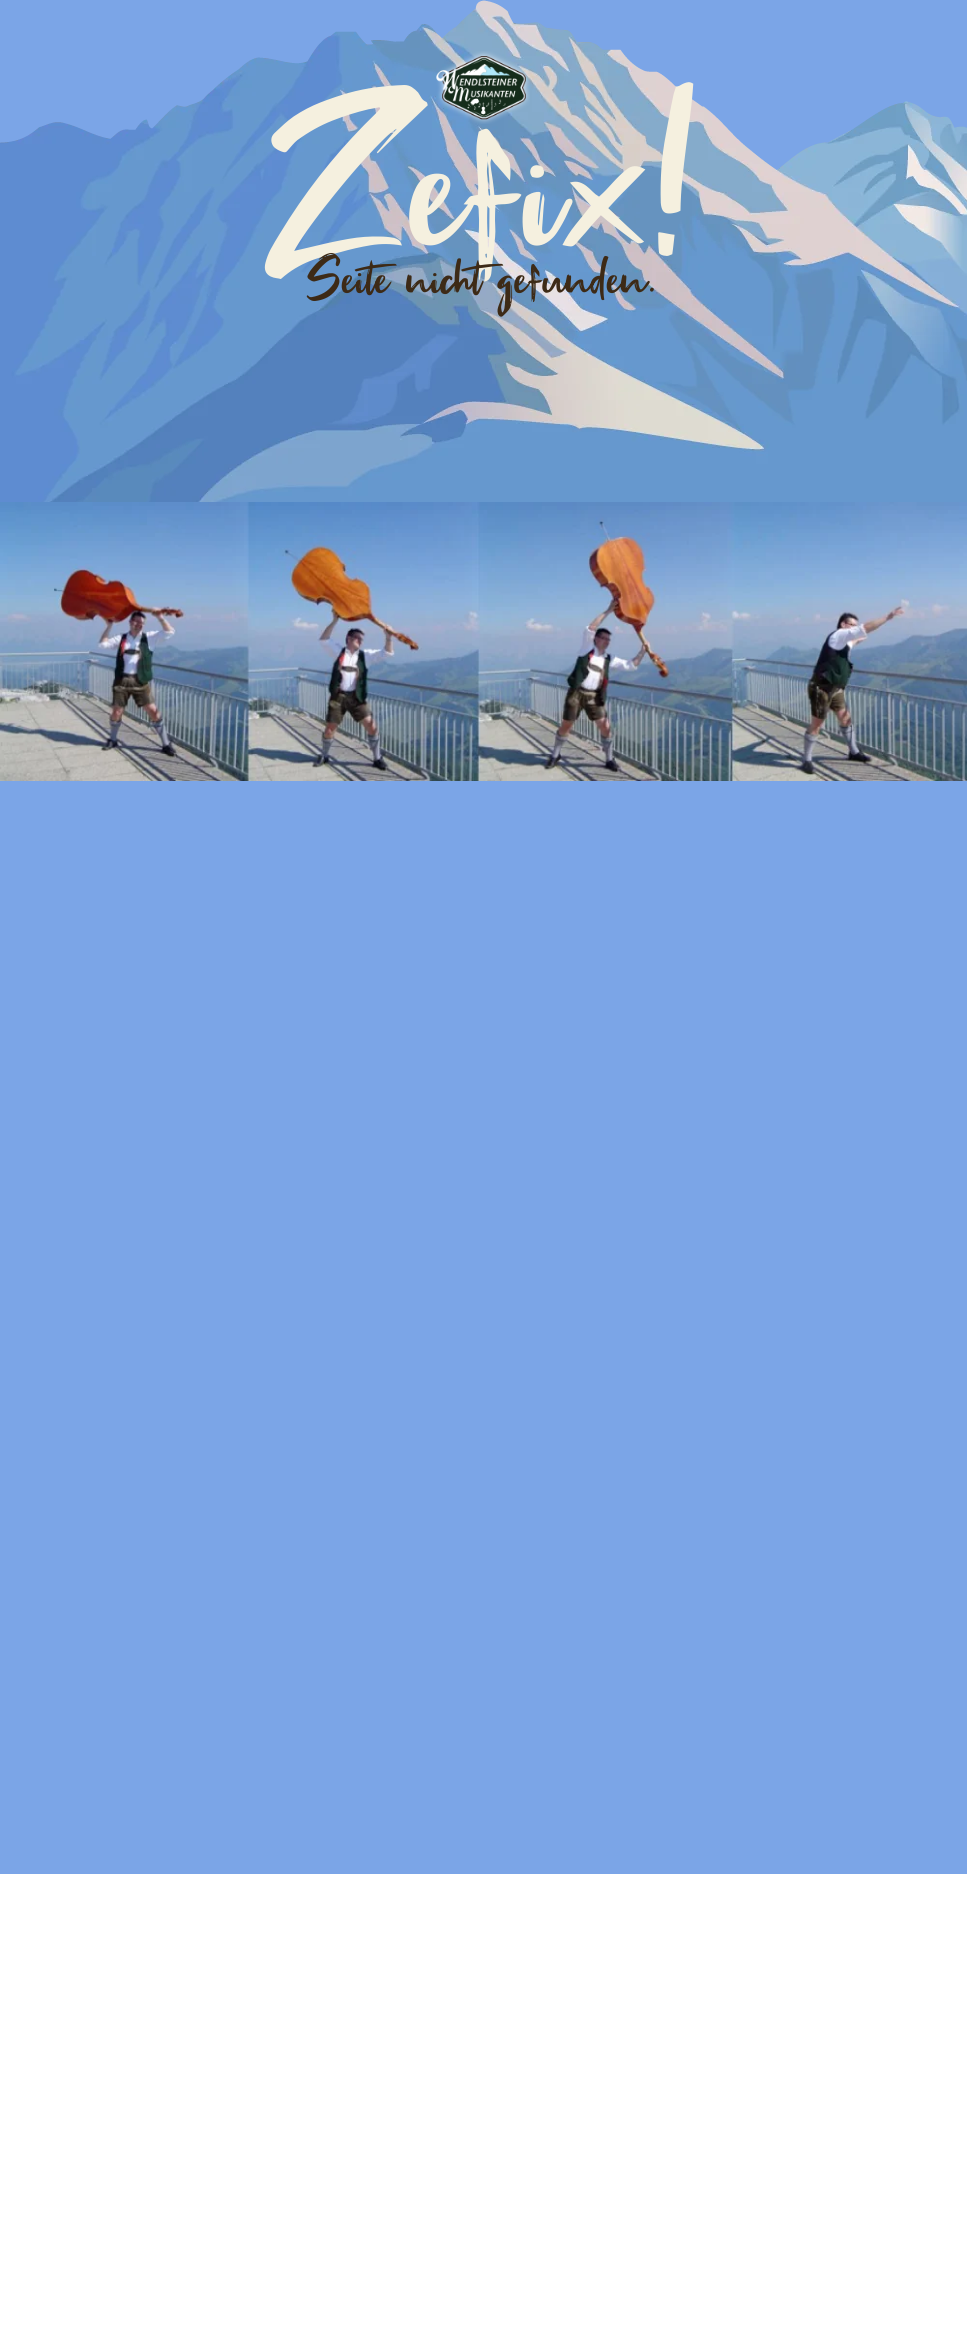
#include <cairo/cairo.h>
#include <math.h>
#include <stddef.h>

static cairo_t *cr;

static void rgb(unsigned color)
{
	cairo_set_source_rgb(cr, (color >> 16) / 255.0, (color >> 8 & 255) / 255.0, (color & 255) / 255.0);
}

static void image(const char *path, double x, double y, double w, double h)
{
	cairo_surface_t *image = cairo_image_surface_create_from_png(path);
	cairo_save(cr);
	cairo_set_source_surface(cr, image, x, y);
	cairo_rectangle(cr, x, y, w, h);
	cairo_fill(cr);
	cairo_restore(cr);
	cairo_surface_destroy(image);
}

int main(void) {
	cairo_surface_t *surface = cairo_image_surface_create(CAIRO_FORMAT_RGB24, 967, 2342);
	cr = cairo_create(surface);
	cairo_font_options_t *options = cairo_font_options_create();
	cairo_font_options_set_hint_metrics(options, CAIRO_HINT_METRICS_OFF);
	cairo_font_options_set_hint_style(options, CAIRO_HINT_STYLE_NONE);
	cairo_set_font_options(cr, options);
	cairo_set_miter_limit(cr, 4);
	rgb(0xffffff);
	cairo_paint(cr);
	rgb(0x7ba5e7);
	cairo_rectangle(cr, 0, 0, 967, 1874);
	cairo_fill(cr);
	image("img/1.png", 0, 0, 967, 502);
	image("img/2.png", 436, 51, 94, 73);
	image("img/3.png", 0, 502, 967, 279);
	cairo_select_font_face(cr, "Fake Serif", CAIRO_FONT_SLANT_NORMAL, CAIRO_FONT_WEIGHT_NORMAL);
	cairo_set_font_size(cr, 256);
	rgb(0xf5f0df);
	cairo_move_to(cr, 266, 277);
	cairo_show_text(cr, "Zefix!");
	cairo_set_font_size(cr, 64);
	rgb(0x3d2a16);
	cairo_move_to(cr, 307, 301);
	cairo_show_text(cr, "Seite nicht gefunden.");
	cairo_surface_write_to_png(surface, "page.png");
	cairo_font_options_destroy(options);
	cairo_destroy(cr);
	cairo_surface_destroy(surface);
	return 0;
}
